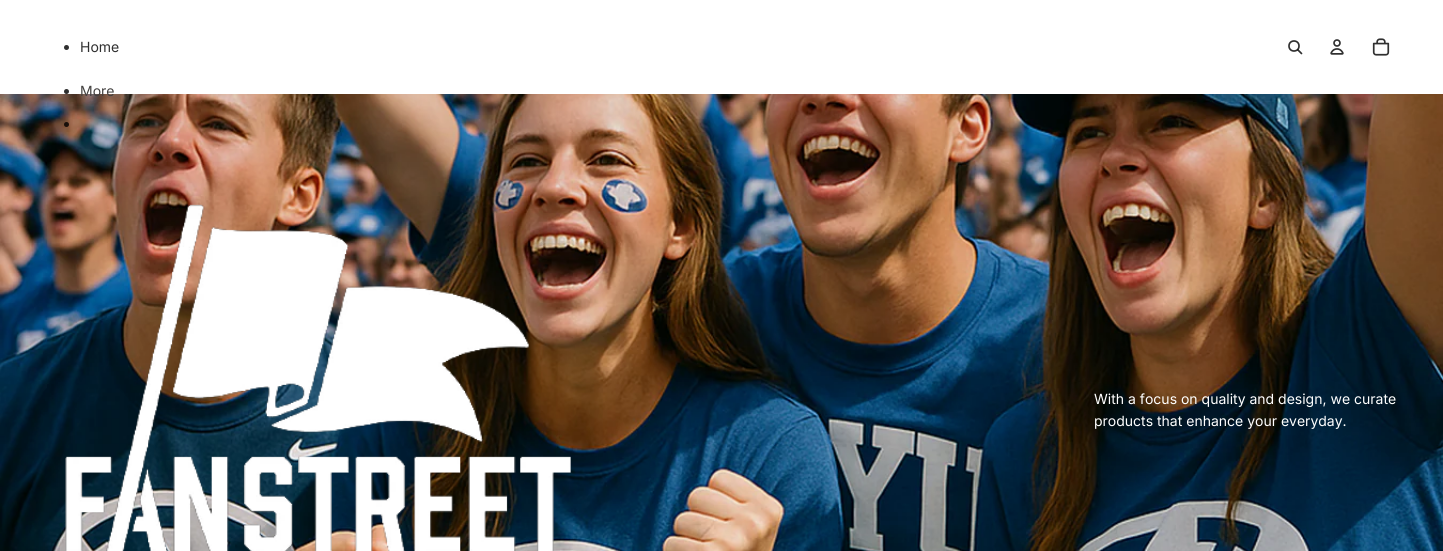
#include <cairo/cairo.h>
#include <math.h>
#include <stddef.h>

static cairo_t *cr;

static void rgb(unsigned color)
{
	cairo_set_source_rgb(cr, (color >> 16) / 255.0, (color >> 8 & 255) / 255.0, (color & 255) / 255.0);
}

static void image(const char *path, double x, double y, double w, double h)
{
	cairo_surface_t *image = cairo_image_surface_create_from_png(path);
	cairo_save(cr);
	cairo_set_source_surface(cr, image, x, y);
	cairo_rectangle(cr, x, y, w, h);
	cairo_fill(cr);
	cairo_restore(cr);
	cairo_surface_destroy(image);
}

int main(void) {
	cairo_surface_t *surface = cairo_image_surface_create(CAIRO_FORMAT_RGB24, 1443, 551);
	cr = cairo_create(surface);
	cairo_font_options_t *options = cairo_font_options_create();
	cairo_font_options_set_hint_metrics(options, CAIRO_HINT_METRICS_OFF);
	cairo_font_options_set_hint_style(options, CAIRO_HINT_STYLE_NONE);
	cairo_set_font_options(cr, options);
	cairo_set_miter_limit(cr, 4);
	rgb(0xffffff);
	cairo_paint(cr);
	rgb(0x303030);
	cairo_arc(cr, 66.5, 47.5, 2.5, 0, 2 * M_PI);
	cairo_fill(cr);
	cairo_arc(cr, 66.5, 91.5, 2.5, 0, 2 * M_PI);
	cairo_fill(cr);
	image("img/3.png", 0, 94, 1443, 457);
	cairo_set_source_rgba(cr, 0, 0, 0, 0.81);
	cairo_arc(cr, 66.5, 124.5, 2.5, 0, 2 * M_PI);
	cairo_fill(cr);
	cairo_arc(cr, 1294, 46, 5, 0, 2 * M_PI);
	rgb(0x303030);
	cairo_set_line_width(cr, 1.7);
	cairo_stroke(cr);
	cairo_new_path(cr);
	cairo_move_to(cr, 1298, 50);
	cairo_line_to(cr, 1301.5, 53.5);
	cairo_set_source_rgba(cr, 0, 0, 0, 0.81);
	cairo_set_line_cap(cr, CAIRO_LINE_CAP_ROUND);
	cairo_set_line_join(cr, CAIRO_LINE_JOIN_ROUND);
	cairo_stroke(cr);
	image("img/1.png", 1330, 39, 14, 16);
	image("img/2.png", 1372, 38, 18, 18);
	image("img/4.png", 65, 204, 506, 347);
	cairo_select_font_face(cr, "Inter", CAIRO_FONT_SLANT_NORMAL, CAIRO_FONT_WEIGHT_NORMAL);
	cairo_set_font_size(cr, 14);
	rgb(0x303030);
	cairo_move_to(cr, 80, 52);
	cairo_show_text(cr, "Home");
	rgb(0x434140);
	cairo_move_to(cr, 80, 96);
	cairo_show_text(cr, "More");
	rgb(0xffffff);
	cairo_move_to(cr, 1094, 404);
	cairo_show_text(cr, "With a focus on quality and design, we curate");
	cairo_move_to(cr, 1094, 426);
	cairo_show_text(cr, "products that enhance your everyday.");
	cairo_surface_write_to_png(surface, "page.png");
	cairo_font_options_destroy(options);
	cairo_destroy(cr);
	cairo_surface_destroy(surface);
	return 0;
}
